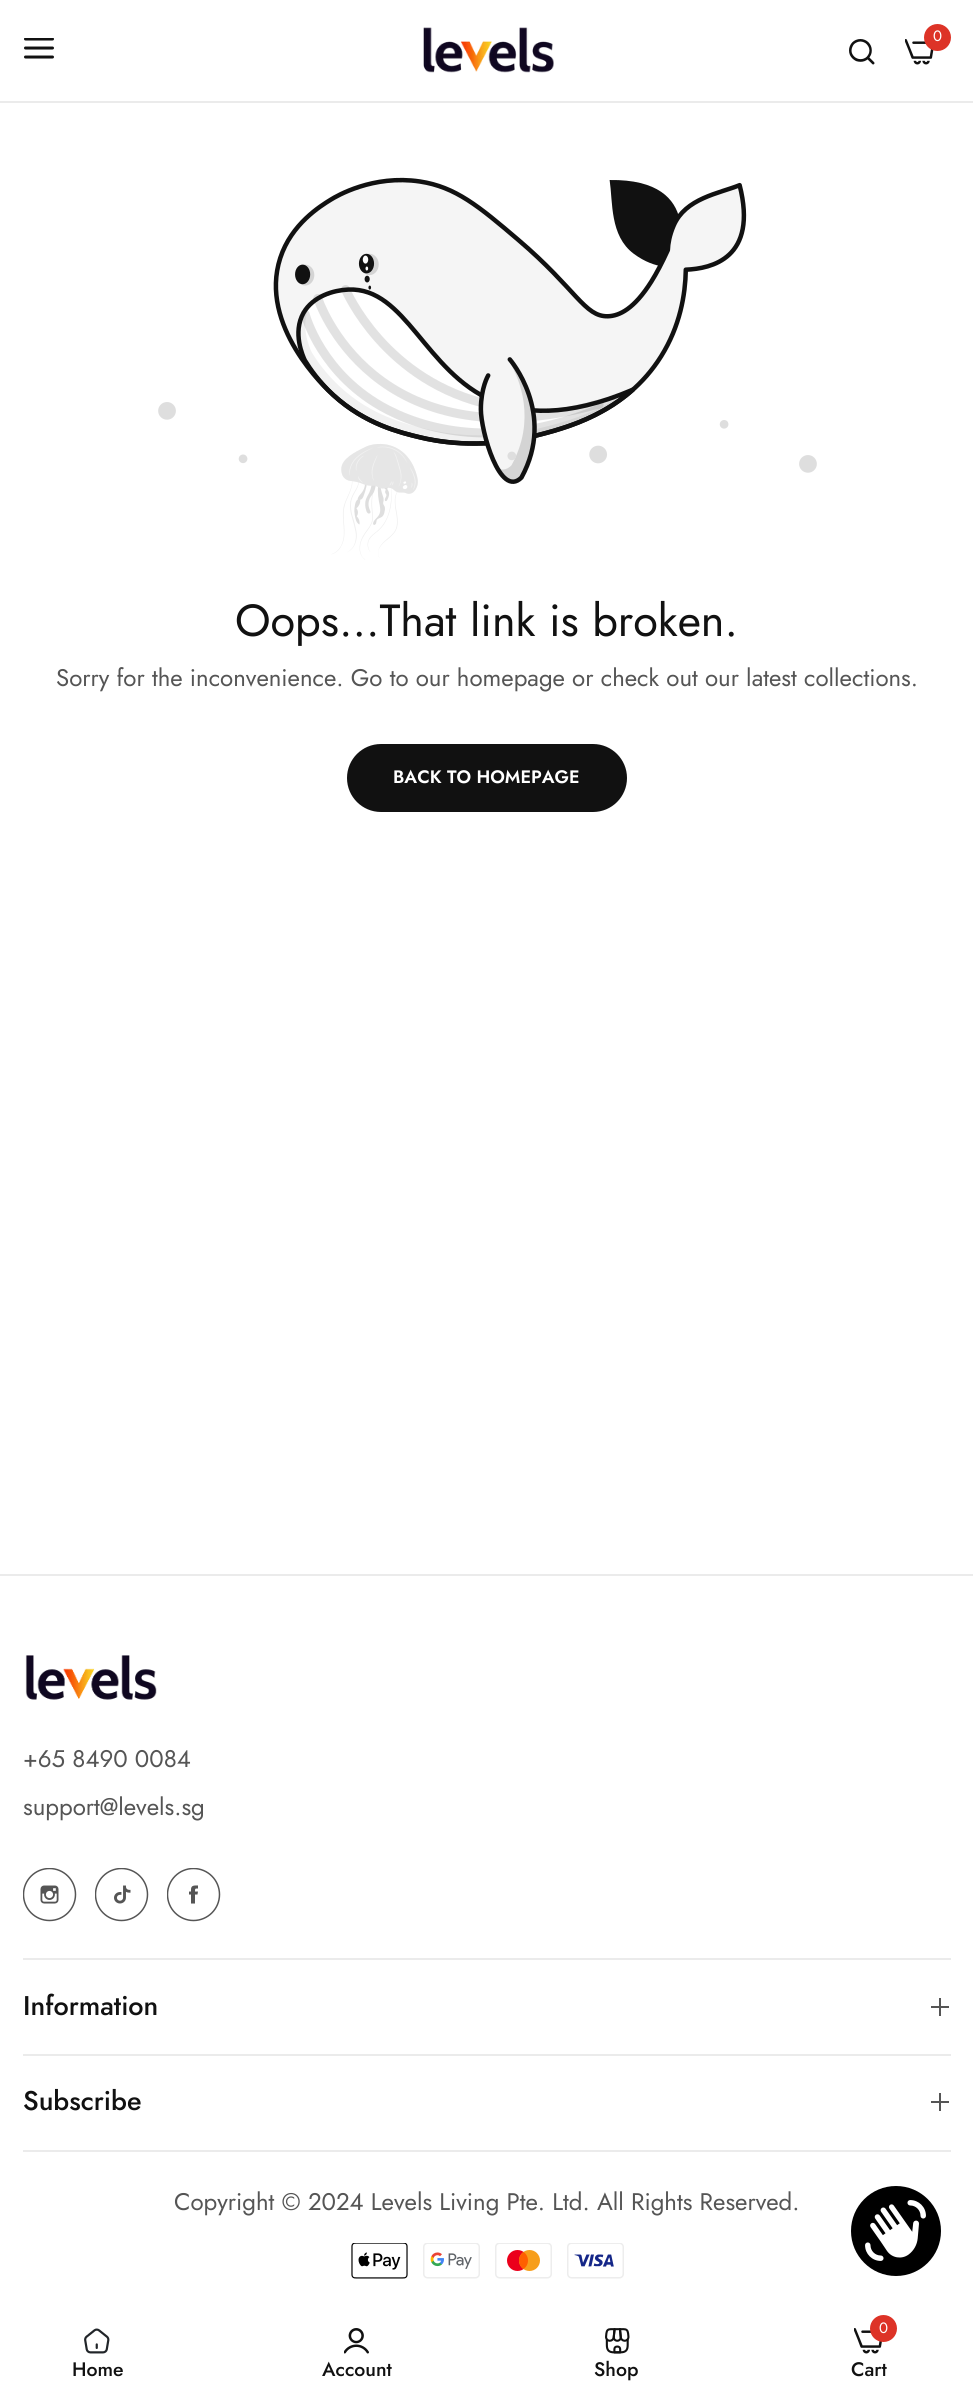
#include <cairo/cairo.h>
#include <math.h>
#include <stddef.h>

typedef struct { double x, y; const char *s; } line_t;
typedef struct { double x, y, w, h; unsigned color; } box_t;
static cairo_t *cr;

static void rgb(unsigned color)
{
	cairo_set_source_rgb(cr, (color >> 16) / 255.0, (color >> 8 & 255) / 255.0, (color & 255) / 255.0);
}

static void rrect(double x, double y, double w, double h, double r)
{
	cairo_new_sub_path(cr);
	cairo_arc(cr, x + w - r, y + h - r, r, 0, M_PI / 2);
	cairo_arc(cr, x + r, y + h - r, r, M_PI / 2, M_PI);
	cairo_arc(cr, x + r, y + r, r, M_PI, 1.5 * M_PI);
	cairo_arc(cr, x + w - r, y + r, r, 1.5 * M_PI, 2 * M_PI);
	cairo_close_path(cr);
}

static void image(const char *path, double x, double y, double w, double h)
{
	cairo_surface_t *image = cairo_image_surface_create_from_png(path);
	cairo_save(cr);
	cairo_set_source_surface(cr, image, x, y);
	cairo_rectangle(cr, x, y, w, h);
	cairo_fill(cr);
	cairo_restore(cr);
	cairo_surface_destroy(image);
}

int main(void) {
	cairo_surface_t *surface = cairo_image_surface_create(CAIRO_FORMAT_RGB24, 973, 2403);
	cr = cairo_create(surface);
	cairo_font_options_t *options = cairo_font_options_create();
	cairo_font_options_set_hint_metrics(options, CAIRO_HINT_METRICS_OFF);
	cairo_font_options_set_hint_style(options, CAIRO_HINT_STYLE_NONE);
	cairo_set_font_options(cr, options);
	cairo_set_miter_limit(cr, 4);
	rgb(0xffffff);
	cairo_paint(cr);
	rgb(0xebebeb);
	cairo_rectangle(cr, 0, 101, 973, 2);
	cairo_fill(cr);
	image("img/1.png", 423, 27, 131, 46);
	image("img/2.png", 905, 39, 29, 26);
	rgb(0xdd3327);
	cairo_arc(cr, 937.5, 37.5, 13.5, 0, 2 * M_PI);
	cairo_fill(cr);
	image("img/3.png", 849, 39, 26, 26);
	image("img/4.png", 24, 38, 30, 21);
	image("img/5.png", 158, 177, 659, 383);
	rgb(0x111111);
	rrect(348, 745, 278, 66, 33);
	cairo_fill_preserve(cr);
	cairo_stroke(cr);
	rgb(0xebebeb);
	cairo_rectangle(cr, 0, 1574, 973, 2);
	cairo_fill(cr);
	image("img/6.png", 25, 1655, 132, 45);
	image("img/7.png", 23, 1868, 54, 54);
	image("img/8.png", 95, 1868, 54, 54);
	cairo_save(cr);
	cairo_rectangle(cr, 167, 1868, 54, 54);
	cairo_clip(cr);
	cairo_arc(cr, 193.5, 1894.5, 26, 0, 2 * M_PI);
	rgb(0x555555);
	cairo_set_line_width(cr, 1.5);
	cairo_stroke(cr);
	cairo_restore(cr);
	rgb(0x555555);
	cairo_new_path(cr);
	cairo_move_to(cr, 191, 1889.5);
	cairo_line_to(cr, 191, 1891.5);
	cairo_line_to(cr, 189, 1891.5);
	cairo_line_to(cr, 189, 1894.5);
	cairo_line_to(cr, 191, 1894.5);
	cairo_line_to(cr, 191, 1903.5);
	cairo_line_to(cr, 195, 1903.5);
	cairo_line_to(cr, 195, 1894.5);
	cairo_line_to(cr, 197.5, 1894.5);
	cairo_line_to(cr, 198, 1891.5);
	cairo_line_to(cr, 195, 1891.5);
	cairo_curve_to(cr, 195, 1888.5, 195, 1888.5, 198, 1888.5);
	cairo_line_to(cr, 198, 1885.5);
	cairo_curve_to(cr, 194.5, 1885.5, 191, 1885, 191, 1889.5);
	cairo_close_path(cr);
	cairo_fill(cr);
	{
		static const box_t items[] = {
			{23, 1958, 928, 2, 0xebebeb},
			{939, 1998, 2, 18, 0x555555},
			{931, 2006, 18, 2, 0x555555},
			{23, 2054, 928, 2, 0xebebeb},
			{939, 2093, 2, 18, 0x555555},
			{931, 2101, 18, 2, 0x555555},
			{23, 2150, 928, 2, 0xebebeb},
		};
		for (size_t i = 0; i < sizeof items / sizeof *items; i++) {
			rgb(items[i].color);
			cairo_rectangle(cr, items[i].x, items[i].y, items[i].w, items[i].h);
			cairo_fill(cr);
		}
	}
	image("img/9.png", 351, 2243, 57, 36);
	image("img/10.png", 423, 2243, 57, 36);
	image("img/11.png", 495, 2243, 57, 36);
	image("img/12.png", 567, 2243, 57, 36);
	image("img/13.png", 84, 2328, 26, 26);
	image("img/14.png", 344, 2328, 25, 26);
	image("img/15.png", 605, 2328, 25, 26);
	image("img/16.png", 854, 2328, 28, 26);
	rgb(0xdd3327);
	cairo_arc(cr, 883.5, 2328.5, 13.5, 0, 2 * M_PI);
	cairo_fill(cr);
	rgb(0x000000);
	cairo_arc(cr, 896, 2231, 45, 0, 2 * M_PI);
	cairo_fill(cr);
	image("img/17.png", 865, 2200, 61, 61);
	cairo_select_font_face(cr, "Jost", CAIRO_FONT_SLANT_NORMAL, CAIRO_FONT_WEIGHT_NORMAL);
	cairo_set_font_size(cr, 15);
	rgb(0xffffff);
	cairo_move_to(cr, 933, 41);
	cairo_show_text(cr, "0");
	cairo_set_font_size(cr, 45);
	rgb(0x111111);
	cairo_move_to(cr, 235, 636);
	cairo_show_text(cr, "Oops...That link is broken.");
	cairo_set_font_size(cr, 24);
	rgb(0x555555);
	cairo_move_to(cr, 56, 686);
	cairo_show_text(cr, "Sorry for the inconvenience. Go to our homepage or check out our latest collections.");
	cairo_select_font_face(cr, "Jost SemiBold", CAIRO_FONT_SLANT_NORMAL, CAIRO_FONT_WEIGHT_NORMAL);
	cairo_set_font_size(cr, 18);
	rgb(0xffffff);
	cairo_move_to(cr, 393, 783);
	cairo_show_text(cr, "BACK TO HOMEPAGE");
	cairo_select_font_face(cr, "Jost", CAIRO_FONT_SLANT_NORMAL, CAIRO_FONT_WEIGHT_NORMAL);
	cairo_set_font_size(cr, 24);
	rgb(0x555555);
	cairo_move_to(cr, 23, 1767);
	cairo_show_text(cr, "+65 8490 0084");
	cairo_move_to(cr, 23, 1815);
	cairo_show_text(cr, "support@levels.sg");
	cairo_select_font_face(cr, "Jost Medium", CAIRO_FONT_SLANT_NORMAL, CAIRO_FONT_WEIGHT_NORMAL);
	cairo_set_font_size(cr, 27);
	rgb(0x111111);
	cairo_move_to(cr, 23, 2015);
	cairo_show_text(cr, "Information");
	cairo_move_to(cr, 23, 2110);
	cairo_show_text(cr, "Subscribe");
	cairo_select_font_face(cr, "Jost", CAIRO_FONT_SLANT_NORMAL, CAIRO_FONT_WEIGHT_NORMAL);
	cairo_set_font_size(cr, 24);
	rgb(0x555555);
	cairo_move_to(cr, 174, 2210);
	cairo_show_text(cr, "Copyright © 2024 Levels Living Pte. Ltd. All Rights Reserved.");
	cairo_select_font_face(cr, "Jost Medium", CAIRO_FONT_SLANT_NORMAL, CAIRO_FONT_WEIGHT_NORMAL);
	cairo_set_font_size(cr, 19.5);
	rgb(0x111111);
	{
		static const line_t items[] = {
			{72, 2376, "Home"},
			{322, 2376, "Account"},
			{594, 2376, "Shop"},
		};
		for (size_t i = 0; i < sizeof items / sizeof *items; i++) {
			cairo_move_to(cr, items[i].x, items[i].y);
			cairo_show_text(cr, items[i].s);
		}
	}
	cairo_select_font_face(cr, "Jost", CAIRO_FONT_SLANT_NORMAL, CAIRO_FONT_WEIGHT_NORMAL);
	cairo_set_font_size(cr, 15);
	rgb(0xffffff);
	cairo_move_to(cr, 879, 2333);
	cairo_show_text(cr, "0");
	cairo_select_font_face(cr, "Jost Medium", CAIRO_FONT_SLANT_NORMAL, CAIRO_FONT_WEIGHT_NORMAL);
	cairo_set_font_size(cr, 19.5);
	rgb(0x111111);
	cairo_move_to(cr, 851, 2376);
	cairo_show_text(cr, "Cart");
	cairo_surface_write_to_png(surface, "page.png");
	cairo_font_options_destroy(options);
	cairo_destroy(cr);
	cairo_surface_destroy(surface);
	return 0;
}
